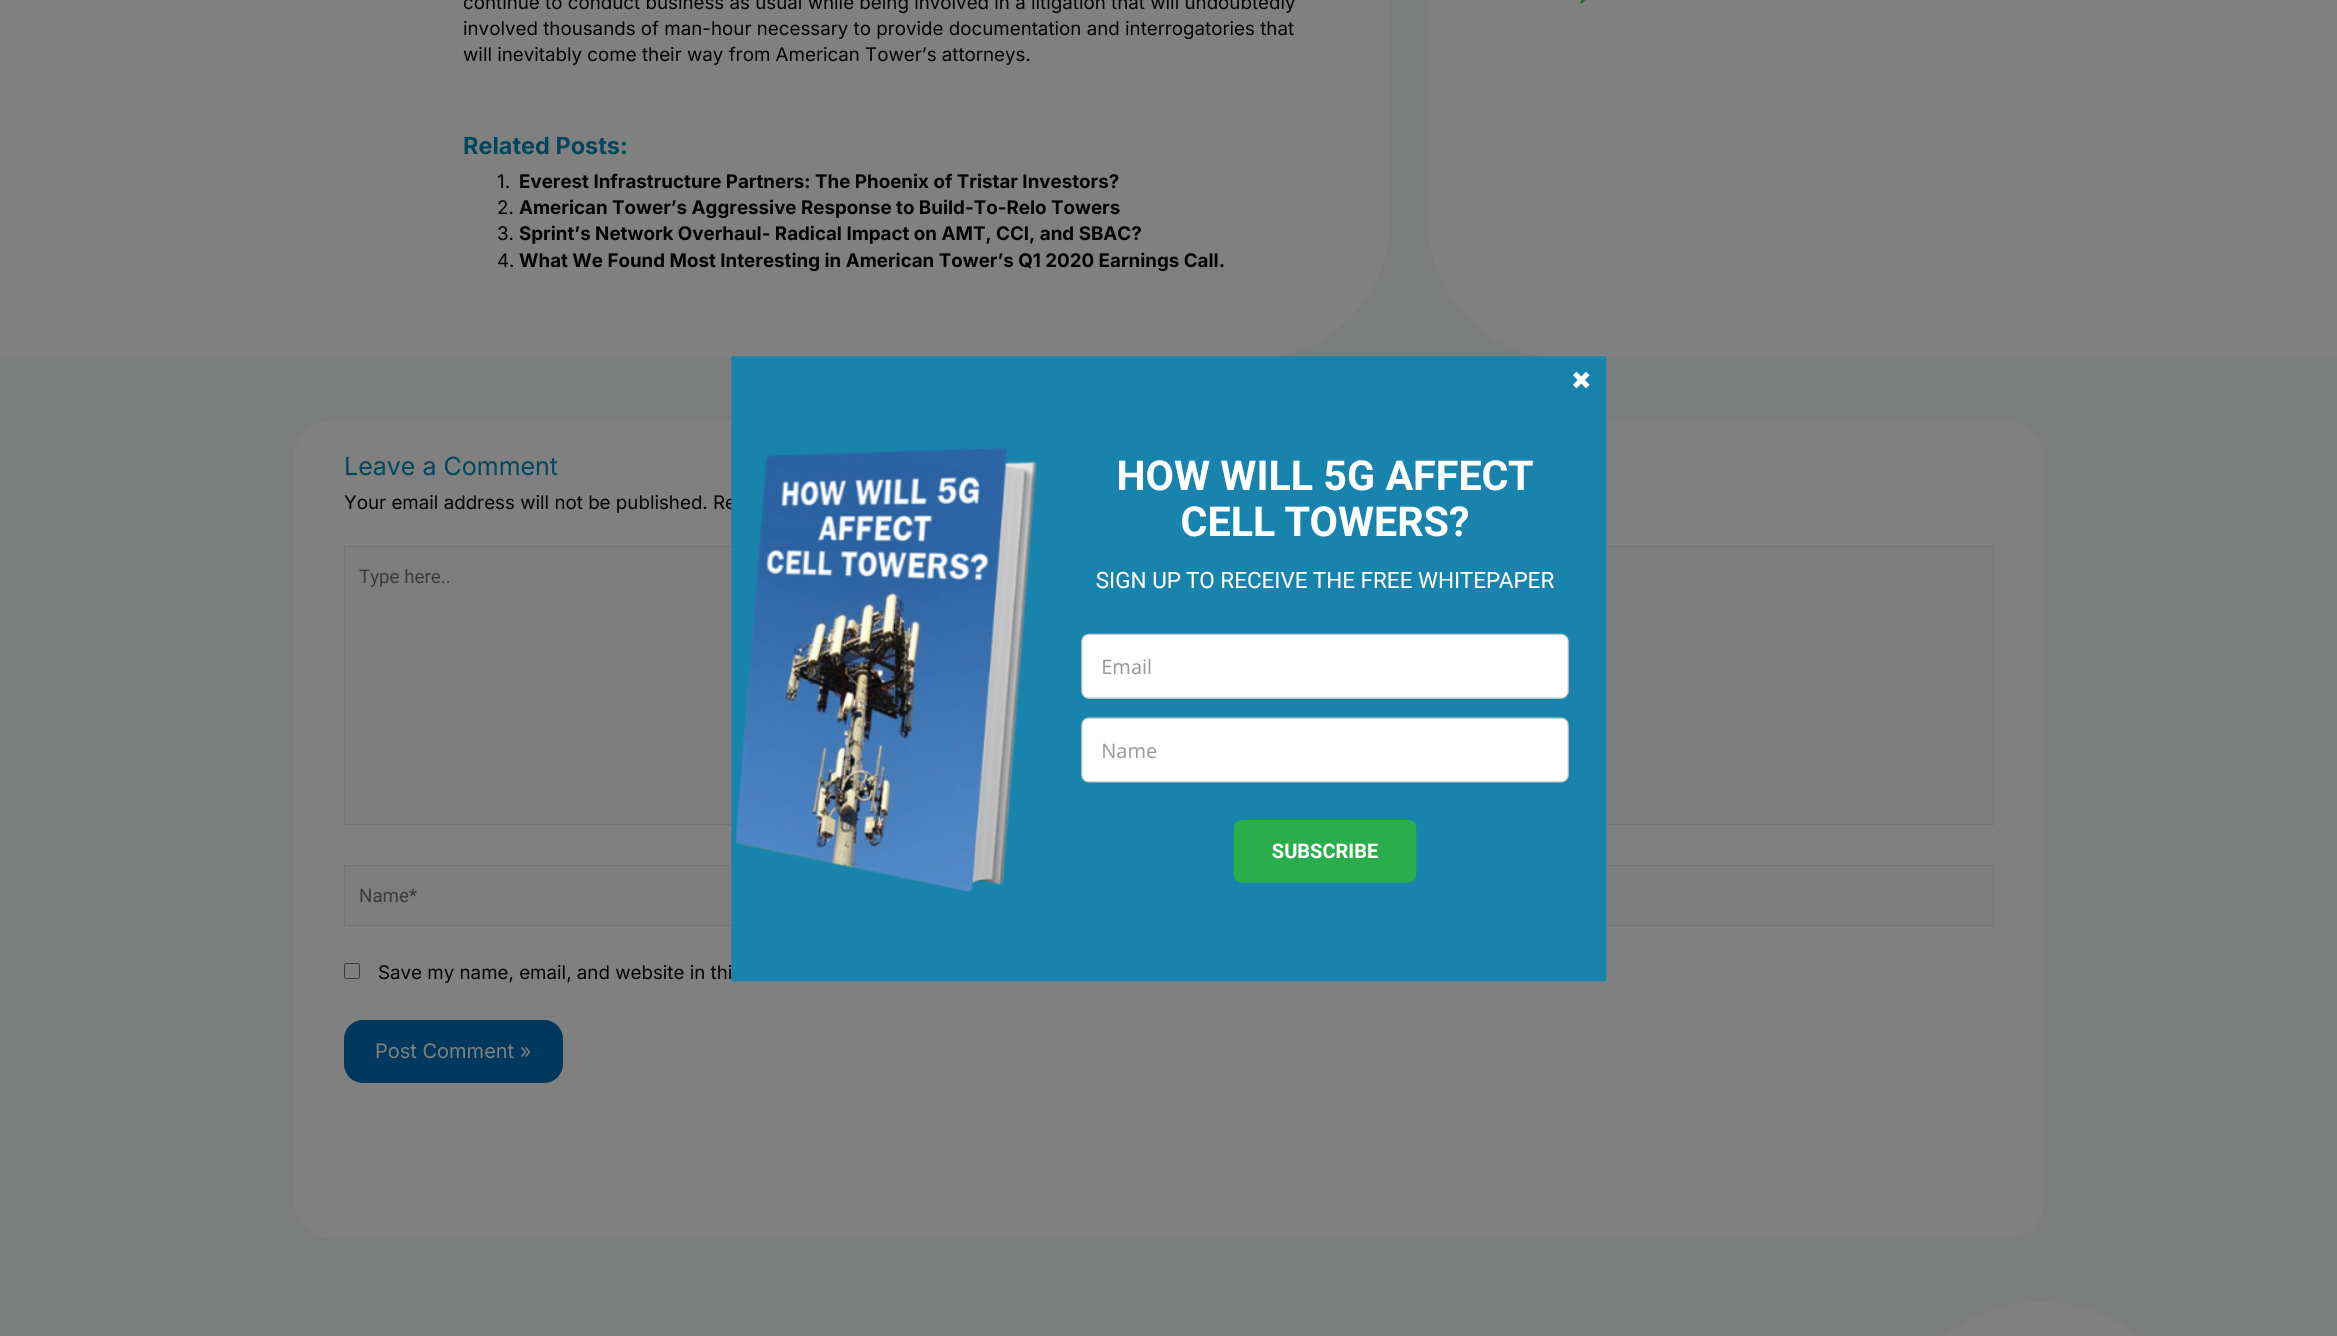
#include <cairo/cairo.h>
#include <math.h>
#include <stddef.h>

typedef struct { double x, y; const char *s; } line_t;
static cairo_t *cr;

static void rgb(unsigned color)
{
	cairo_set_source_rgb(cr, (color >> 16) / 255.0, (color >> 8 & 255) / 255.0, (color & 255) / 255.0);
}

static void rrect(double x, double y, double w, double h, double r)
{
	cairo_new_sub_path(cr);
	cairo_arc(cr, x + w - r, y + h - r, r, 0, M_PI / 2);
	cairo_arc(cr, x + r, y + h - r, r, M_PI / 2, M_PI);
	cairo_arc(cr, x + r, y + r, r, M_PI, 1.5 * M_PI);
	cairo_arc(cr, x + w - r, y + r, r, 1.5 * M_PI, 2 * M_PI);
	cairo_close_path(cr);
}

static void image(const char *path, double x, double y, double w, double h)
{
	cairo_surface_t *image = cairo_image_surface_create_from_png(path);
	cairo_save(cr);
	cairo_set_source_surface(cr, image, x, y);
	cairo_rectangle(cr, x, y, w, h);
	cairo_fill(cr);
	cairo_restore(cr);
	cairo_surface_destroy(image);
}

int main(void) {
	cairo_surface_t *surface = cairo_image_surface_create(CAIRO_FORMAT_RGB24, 2337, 1336);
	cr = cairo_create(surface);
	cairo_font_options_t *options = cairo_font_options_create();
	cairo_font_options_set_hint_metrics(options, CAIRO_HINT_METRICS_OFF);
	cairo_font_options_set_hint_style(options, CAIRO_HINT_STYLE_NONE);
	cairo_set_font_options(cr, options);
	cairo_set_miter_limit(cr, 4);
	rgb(0x7b7c7c);
	cairo_paint(cr);
	rgb(0x808080);
	cairo_rectangle(cr, 0, 0, 2337, 359);
	cairo_fill(cr);
	rgb(0x7b7c7c);
	cairo_rectangle(cr, 1275, 0, 268, 357);
	cairo_fill(cr);
	rgb(0x808080);
	cairo_new_path(cr);
	cairo_move_to(cr, 450, -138);
	cairo_line_to(cr, 1252, -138);
	cairo_curve_to(cr, 1328, -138, 1390, -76, 1390, 0);
	cairo_line_to(cr, 1390, 221);
	cairo_curve_to(cr, 1390, 297, 1328, 359, 1252, 359);
	cairo_line_to(cr, 450, 359);
	cairo_close_path(cr);
	cairo_fill(cr);
	cairo_new_path(cr);
	cairo_move_to(cr, 1566, -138);
	cairo_line_to(cr, 1888, -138);
	cairo_line_to(cr, 1888, 359);
	cairo_line_to(cr, 1566, 359);
	cairo_curve_to(cr, 1490, 359, 1428, 297, 1428, 221);
	cairo_line_to(cr, 1428, 0);
	cairo_curve_to(cr, 1428, -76, 1490, -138, 1566, -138);
	cairo_close_path(cr);
	cairo_fill(cr);
	image("img/1.png", 1580, 0, 6, 4);
	rrect(294, 421, 1750, 818, 38);
	cairo_fill(cr);
	rgb(0x7d7d7d);
	cairo_rectangle(cr, 344.5, 546.5, 1649, 278);
	cairo_fill_preserve(cr);
	rgb(0x737373);
	cairo_set_line_width(cr, 1);
	cairo_stroke(cr);
	rgb(0x7d7d7d);
	cairo_rectangle(cr, 345, 866, 387, 59);
	cairo_fill(cr);
	cairo_rectangle(cr, 344.5, 865.5, 533, 60);
	rgb(0x737373);
	cairo_stroke(cr);
	rgb(0x7d7d7d);
	cairo_rectangle(cr, 1606, 866, 387, 59);
	cairo_fill(cr);
	cairo_rectangle(cr, 1460.5, 865.5, 533, 60);
	rgb(0x737373);
	cairo_stroke(cr);
	rrect(344.5, 963.5, 15, 15, 2);
	rgb(0x3b3b3b);
	cairo_stroke(cr);
	rgb(0x01385d);
	rrect(344, 1020, 219, 63, 19);
	cairo_fill(cr);
	image("img/2.png", 1945, 1302, 193, 34);
	cairo_select_font_face(cr, "Inter", CAIRO_FONT_SLANT_NORMAL, CAIRO_FONT_WEIGHT_NORMAL);
	cairo_set_font_size(cr, 18.75);
	rgb(0x030303);
	{
		static const line_t items[] = {
			{463, 9, "continue to conduct business as usual while being involved in a litigation that will undoubtedly"},
			{463, 35, "involved thousands of man-hour necessary to provide documentation and interrogatories that"},
			{463, 61, "will inevitably come their way from American Tower’s attorneys."},
		};
		for (size_t i = 0; i < sizeof items / sizeof *items; i++) {
			cairo_move_to(cr, items[i].x, items[i].y);
			cairo_show_text(cr, items[i].s);
		}
	}
	cairo_select_font_face(cr, "Inter", CAIRO_FONT_SLANT_NORMAL, CAIRO_FONT_WEIGHT_BOLD);
	cairo_set_font_size(cr, 23.5);
	rgb(0x00465f);
	cairo_move_to(cr, 463, 154);
	cairo_show_text(cr, "Related Posts:");
	cairo_select_font_face(cr, "Inter", CAIRO_FONT_SLANT_NORMAL, CAIRO_FONT_WEIGHT_NORMAL);
	cairo_set_font_size(cr, 18.75);
	rgb(0x030303);
	cairo_move_to(cr, 497, 188);
	cairo_show_text(cr, "1.");
	cairo_select_font_face(cr, "Inter", CAIRO_FONT_SLANT_NORMAL, CAIRO_FONT_WEIGHT_BOLD);
	cairo_move_to(cr, 519, 188);
	cairo_show_text(cr, "Everest Infrastructure Partners: The Phoenix of Tristar Investors?");
	cairo_select_font_face(cr, "Inter", CAIRO_FONT_SLANT_NORMAL, CAIRO_FONT_WEIGHT_NORMAL);
	cairo_move_to(cr, 497, 214);
	cairo_show_text(cr, "2.");
	cairo_select_font_face(cr, "Inter", CAIRO_FONT_SLANT_NORMAL, CAIRO_FONT_WEIGHT_BOLD);
	cairo_move_to(cr, 519, 214);
	cairo_show_text(cr, "American Tower’s Aggressive Response to Build-To-Relo Towers");
	cairo_select_font_face(cr, "Inter", CAIRO_FONT_SLANT_NORMAL, CAIRO_FONT_WEIGHT_NORMAL);
	cairo_move_to(cr, 497, 240);
	cairo_show_text(cr, "3.");
	cairo_select_font_face(cr, "Inter", CAIRO_FONT_SLANT_NORMAL, CAIRO_FONT_WEIGHT_BOLD);
	cairo_move_to(cr, 519, 240);
	cairo_show_text(cr, "Sprint’s Network Overhaul- Radical Impact on AMT, CCI, and SBAC?");
	cairo_select_font_face(cr, "Inter", CAIRO_FONT_SLANT_NORMAL, CAIRO_FONT_WEIGHT_NORMAL);
	cairo_move_to(cr, 497, 267);
	cairo_show_text(cr, "4.");
	cairo_select_font_face(cr, "Inter", CAIRO_FONT_SLANT_NORMAL, CAIRO_FONT_WEIGHT_BOLD);
	cairo_move_to(cr, 519, 267);
	cairo_show_text(cr, "What We Found Most Interesting in American Tower’s Q1 2020 Earnings Call.");
	cairo_select_font_face(cr, "Inter", CAIRO_FONT_SLANT_NORMAL, CAIRO_FONT_WEIGHT_NORMAL);
	cairo_set_font_size(cr, 25);
	rgb(0x00465f);
	cairo_move_to(cr, 344, 475);
	cairo_show_text(cr, "Leave a Comment");
	cairo_set_font_size(cr, 18.75);
	rgb(0x030303);
	cairo_move_to(cr, 344, 509);
	cairo_show_text(cr, "Your email address will not be published. Re");
	cairo_select_font_face(cr, "Roboto", CAIRO_FONT_SLANT_NORMAL, CAIRO_FONT_WEIGHT_NORMAL);
	rgb(0x3b3b3b);
	cairo_move_to(cr, 359, 583);
	cairo_show_text(cr, "Type here..");
	cairo_move_to(cr, 359, 902);
	cairo_show_text(cr, "Name*");
	cairo_select_font_face(cr, "Inter", CAIRO_FONT_SLANT_NORMAL, CAIRO_FONT_WEIGHT_NORMAL);
	rgb(0x030303);
	cairo_move_to(cr, 378, 979);
	cairo_show_text(cr, "Save my name, email, and website in thi");
	cairo_set_font_size(cr, 20);
	rgb(0x808080);
	cairo_move_to(cr, 375, 1058);
	cairo_show_text(cr, "Post Comment »");
	image("img/3.png", 731, 356, 876, 626);
	cairo_surface_write_to_png(surface, "page.png");
	cairo_font_options_destroy(options);
	cairo_destroy(cr);
	cairo_surface_destroy(surface);
	return 0;
}
